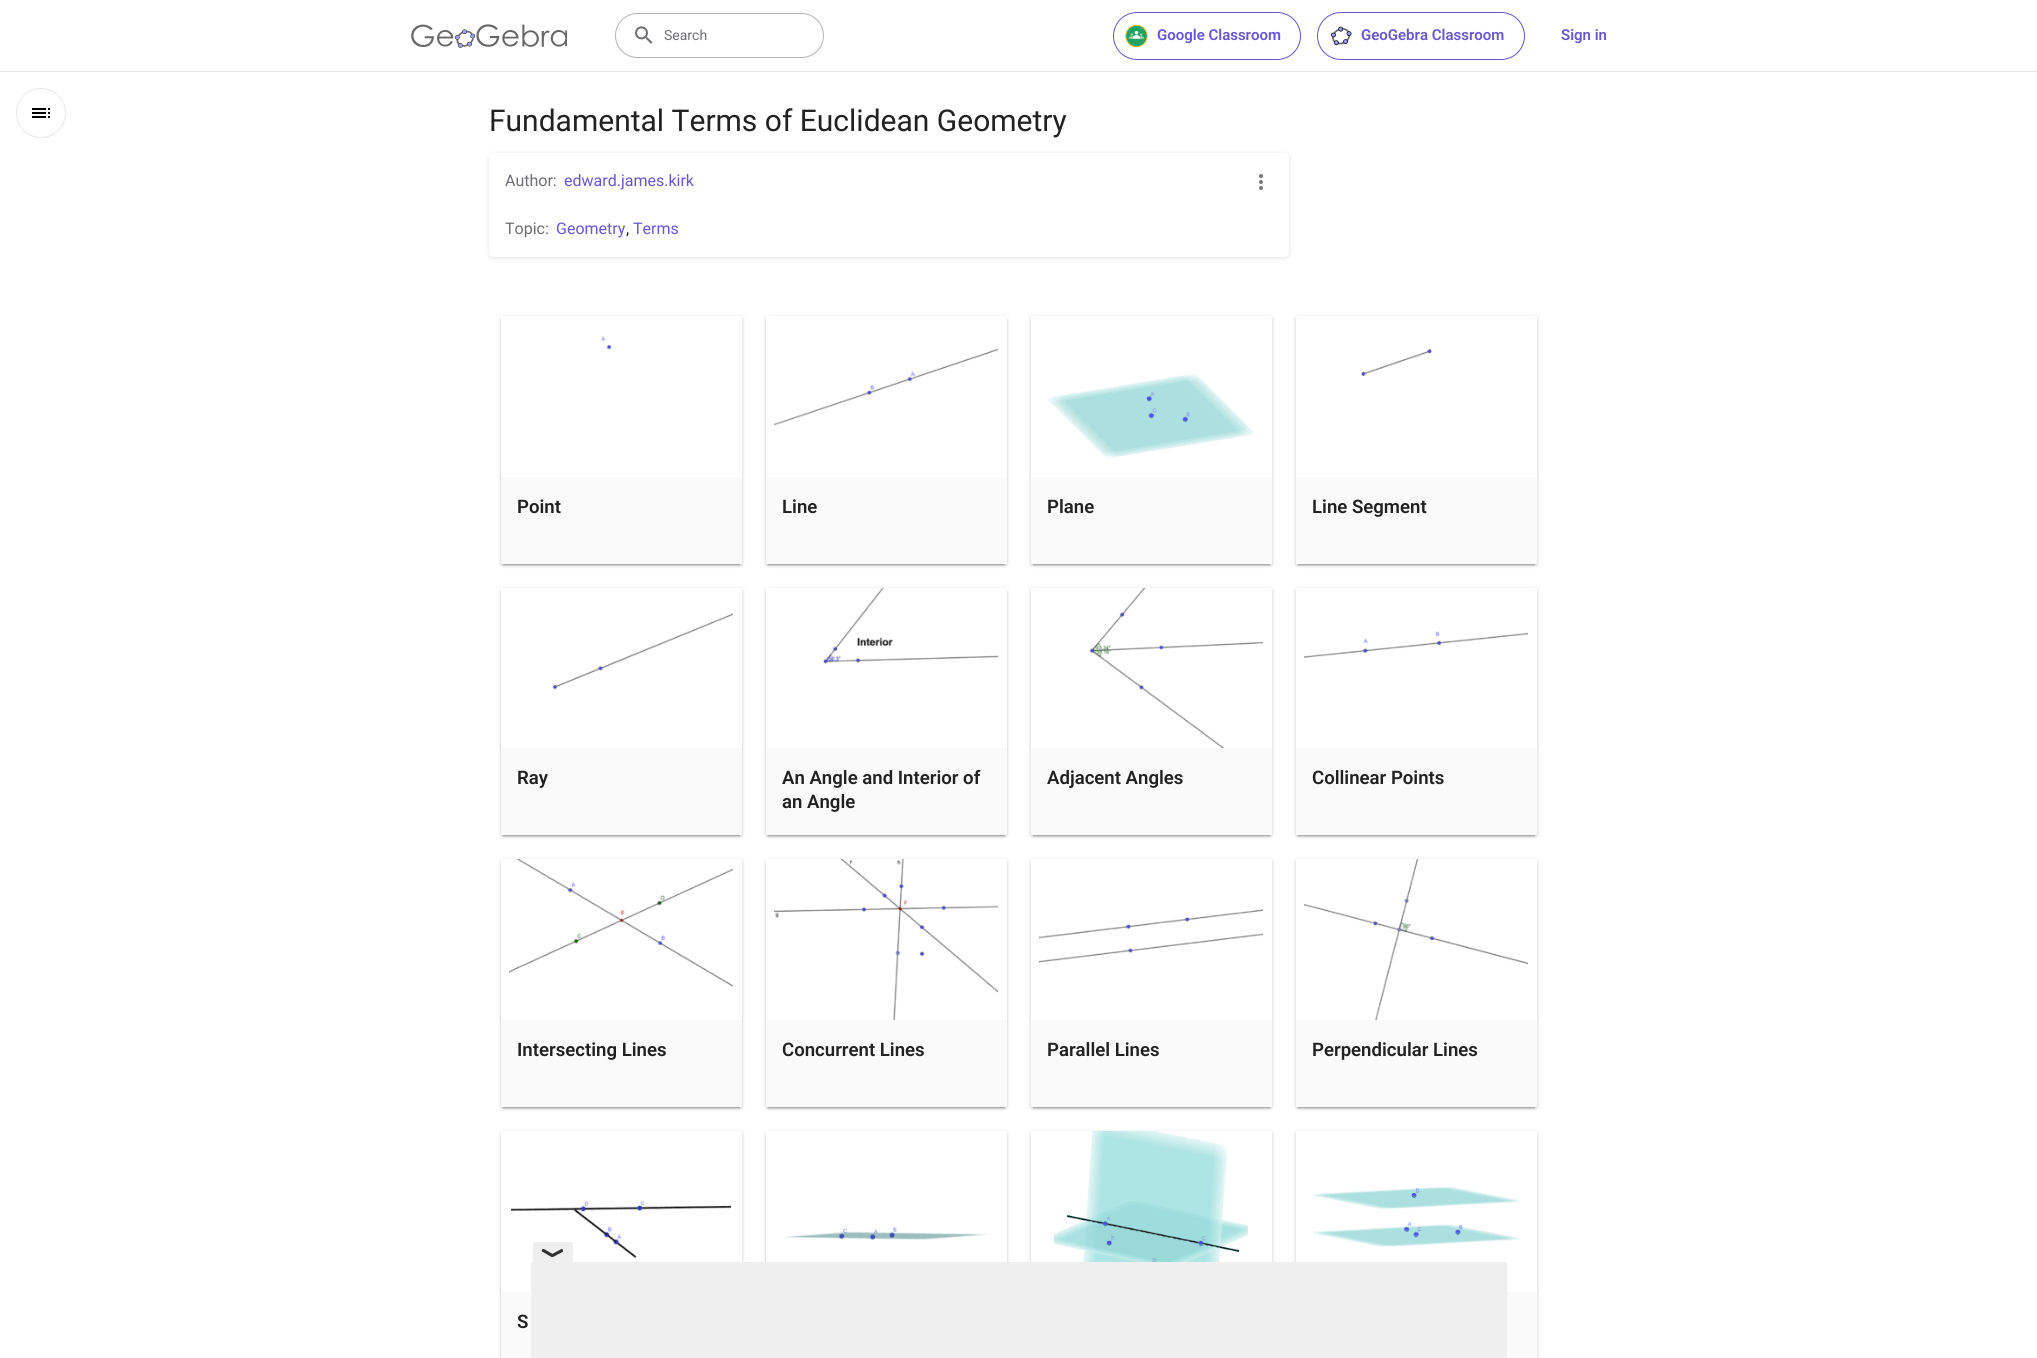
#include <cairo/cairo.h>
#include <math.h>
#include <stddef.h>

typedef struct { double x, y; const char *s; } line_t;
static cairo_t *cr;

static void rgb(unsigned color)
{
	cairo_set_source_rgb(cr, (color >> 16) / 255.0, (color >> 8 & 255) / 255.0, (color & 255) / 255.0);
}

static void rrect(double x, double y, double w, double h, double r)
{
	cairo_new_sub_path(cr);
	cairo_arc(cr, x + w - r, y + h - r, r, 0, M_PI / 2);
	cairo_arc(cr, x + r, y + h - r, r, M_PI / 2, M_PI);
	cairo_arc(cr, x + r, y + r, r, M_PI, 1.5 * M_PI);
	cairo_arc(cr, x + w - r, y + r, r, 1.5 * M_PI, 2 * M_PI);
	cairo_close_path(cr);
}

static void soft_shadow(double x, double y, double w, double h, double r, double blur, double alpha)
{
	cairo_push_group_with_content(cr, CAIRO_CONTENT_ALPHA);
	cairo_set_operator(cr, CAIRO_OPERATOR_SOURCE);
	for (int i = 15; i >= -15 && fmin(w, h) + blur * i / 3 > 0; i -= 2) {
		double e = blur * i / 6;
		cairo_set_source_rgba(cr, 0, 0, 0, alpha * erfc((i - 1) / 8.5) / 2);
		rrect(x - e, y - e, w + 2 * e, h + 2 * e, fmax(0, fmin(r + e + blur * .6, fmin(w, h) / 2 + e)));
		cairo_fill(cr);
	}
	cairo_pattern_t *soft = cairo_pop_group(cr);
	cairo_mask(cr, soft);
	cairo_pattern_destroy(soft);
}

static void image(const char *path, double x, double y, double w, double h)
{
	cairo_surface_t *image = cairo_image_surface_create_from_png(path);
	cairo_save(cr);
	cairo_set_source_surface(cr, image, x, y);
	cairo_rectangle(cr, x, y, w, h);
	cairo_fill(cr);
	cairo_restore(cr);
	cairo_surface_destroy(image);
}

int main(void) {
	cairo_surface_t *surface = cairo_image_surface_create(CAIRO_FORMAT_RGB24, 2037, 1358);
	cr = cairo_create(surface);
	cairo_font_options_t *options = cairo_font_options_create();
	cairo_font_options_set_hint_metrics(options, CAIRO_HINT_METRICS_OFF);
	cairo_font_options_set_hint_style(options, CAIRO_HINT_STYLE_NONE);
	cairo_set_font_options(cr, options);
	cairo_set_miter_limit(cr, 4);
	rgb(0xffffff);
	cairo_paint(cr);
	rgb(0xe6e6eb);
	cairo_rectangle(cr, 0, 71, 2037, 1);
	cairo_fill(cr);
	image("img/1.png", 411, 24, 156, 24);
	rrect(615.5, 13.5, 208, 44, 22);
	rgb(0xb4b3ba);
	cairo_set_line_width(cr, 1);
	cairo_stroke(cr);
	image("img/2.png", 635, 26, 18, 18);
	rrect(1113.5, 12.5, 187, 47, 23.5);
	rgb(0x6557d2);
	cairo_stroke(cr);
	image("img/3.png", 1125, 24, 23, 24);
	rrect(1317.5, 12.5, 207, 47, 23.5);
	cairo_stroke(cr);
	image("img/4.png", 1331, 26, 21, 20);
	cairo_arc(cr, 41, 113, 24.5, 0, 2 * M_PI);
	rgb(0xe5e7eb);
	cairo_stroke(cr);
	image("img/5.png", 32, 108, 18, 10);
	rgb(0x1c1c1f);
	soft_shadow(489, 154, 800, 104, 4, 2, 0.14);
	rgb(0xffffff);
	rrect(489, 153, 800, 104, 4);
	cairo_fill(cr);
	image("img/6.png", 1259, 174, 4, 16);
	cairo_save(cr);
	cairo_set_fill_rule(cr, CAIRO_FILL_RULE_EVEN_ODD);
	cairo_new_path(cr);
	cairo_move_to(cr, 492, 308);
	cairo_line_to(cr, 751, 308);
	cairo_line_to(cr, 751, 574);
	cairo_line_to(cr, 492, 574);
	cairo_close_path(cr);
	cairo_move_to(cr, 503, 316);
	cairo_line_to(cr, 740, 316);
	cairo_curve_to(cr, 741, 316, 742, 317, 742, 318);
	cairo_line_to(cr, 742, 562);
	cairo_curve_to(cr, 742, 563, 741, 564, 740, 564);
	cairo_line_to(cr, 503, 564);
	cairo_curve_to(cr, 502, 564, 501, 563, 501, 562);
	cairo_line_to(cr, 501, 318);
	cairo_curve_to(cr, 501, 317, 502, 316, 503, 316);
	cairo_close_path(cr);
	cairo_clip(cr);
	rgb(0x000000);
	soft_shadow(501, 317, 241, 248, 2, 2.5, 0.12);
	cairo_restore(cr);
	cairo_save(cr);
	cairo_set_fill_rule(cr, CAIRO_FILL_RULE_EVEN_ODD);
	cairo_new_path(cr);
	cairo_move_to(cr, 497, 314);
	cairo_line_to(cr, 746, 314);
	cairo_line_to(cr, 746, 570);
	cairo_line_to(cr, 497, 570);
	cairo_close_path(cr);
	cairo_move_to(cr, 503, 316);
	cairo_line_to(cr, 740, 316);
	cairo_curve_to(cr, 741, 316, 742, 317, 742, 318);
	cairo_line_to(cr, 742, 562);
	cairo_curve_to(cr, 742, 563, 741, 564, 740, 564);
	cairo_line_to(cr, 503, 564);
	cairo_curve_to(cr, 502, 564, 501, 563, 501, 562);
	cairo_line_to(cr, 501, 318);
	cairo_curve_to(cr, 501, 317, 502, 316, 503, 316);
	cairo_close_path(cr);
	cairo_clip(cr);
	rgb(0x000000);
	soft_shadow(501, 318, 241, 248, 2, 1, 0.14);
	cairo_restore(cr);
	cairo_save(cr);
	cairo_rectangle(cr, 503, 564, 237, 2);
	cairo_clip(cr);
	rgb(0x000000);
	soft_shadow(503, 321, 237, 244, 0, 0.5, 0.2);
	cairo_restore(cr);
	image("img/7.png", 601, 336, 11, 14);
	rgb(0xfafafa);
	cairo_rectangle(cr, 501, 477, 241, 87);
	cairo_fill(cr);
	cairo_save(cr);
	cairo_set_fill_rule(cr, CAIRO_FILL_RULE_EVEN_ODD);
	cairo_new_path(cr);
	cairo_move_to(cr, 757, 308);
	cairo_line_to(cr, 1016, 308);
	cairo_line_to(cr, 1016, 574);
	cairo_line_to(cr, 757, 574);
	cairo_close_path(cr);
	cairo_move_to(cr, 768, 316);
	cairo_line_to(cr, 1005, 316);
	cairo_curve_to(cr, 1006, 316, 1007, 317, 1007, 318);
	cairo_line_to(cr, 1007, 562);
	cairo_curve_to(cr, 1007, 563, 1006, 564, 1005, 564);
	cairo_line_to(cr, 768, 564);
	cairo_curve_to(cr, 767, 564, 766, 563, 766, 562);
	cairo_line_to(cr, 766, 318);
	cairo_curve_to(cr, 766, 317, 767, 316, 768, 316);
	cairo_close_path(cr);
	cairo_clip(cr);
	rgb(0x000000);
	soft_shadow(766, 317, 241, 248, 2, 2.5, 0.12);
	cairo_restore(cr);
	cairo_save(cr);
	cairo_set_fill_rule(cr, CAIRO_FILL_RULE_EVEN_ODD);
	cairo_new_path(cr);
	cairo_move_to(cr, 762, 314);
	cairo_line_to(cr, 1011, 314);
	cairo_line_to(cr, 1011, 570);
	cairo_line_to(cr, 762, 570);
	cairo_close_path(cr);
	cairo_move_to(cr, 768, 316);
	cairo_line_to(cr, 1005, 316);
	cairo_curve_to(cr, 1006, 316, 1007, 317, 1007, 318);
	cairo_line_to(cr, 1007, 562);
	cairo_curve_to(cr, 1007, 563, 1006, 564, 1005, 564);
	cairo_line_to(cr, 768, 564);
	cairo_curve_to(cr, 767, 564, 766, 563, 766, 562);
	cairo_line_to(cr, 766, 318);
	cairo_curve_to(cr, 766, 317, 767, 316, 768, 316);
	cairo_close_path(cr);
	cairo_clip(cr);
	rgb(0x000000);
	soft_shadow(766, 318, 241, 248, 2, 1, 0.14);
	cairo_restore(cr);
	cairo_save(cr);
	cairo_rectangle(cr, 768, 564, 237, 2);
	cairo_clip(cr);
	rgb(0x000000);
	soft_shadow(768, 321, 237, 244, 0, 0.5, 0.2);
	cairo_restore(cr);
	image("img/8.png", 774, 348, 224, 78);
	cairo_rectangle(cr, 766, 477, 241, 87);
	cairo_fill(cr);
	cairo_save(cr);
	cairo_set_fill_rule(cr, CAIRO_FILL_RULE_EVEN_ODD);
	cairo_new_path(cr);
	cairo_move_to(cr, 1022, 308);
	cairo_line_to(cr, 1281, 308);
	cairo_line_to(cr, 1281, 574);
	cairo_line_to(cr, 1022, 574);
	cairo_close_path(cr);
	cairo_move_to(cr, 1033, 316);
	cairo_line_to(cr, 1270, 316);
	cairo_curve_to(cr, 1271, 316, 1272, 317, 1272, 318);
	cairo_line_to(cr, 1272, 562);
	cairo_curve_to(cr, 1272, 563, 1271, 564, 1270, 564);
	cairo_line_to(cr, 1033, 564);
	cairo_curve_to(cr, 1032, 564, 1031, 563, 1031, 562);
	cairo_line_to(cr, 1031, 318);
	cairo_curve_to(cr, 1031, 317, 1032, 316, 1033, 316);
	cairo_close_path(cr);
	cairo_clip(cr);
	rgb(0x000000);
	soft_shadow(1031, 317, 241, 248, 2, 2.5, 0.12);
	cairo_restore(cr);
	cairo_save(cr);
	cairo_set_fill_rule(cr, CAIRO_FILL_RULE_EVEN_ODD);
	cairo_new_path(cr);
	cairo_move_to(cr, 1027, 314);
	cairo_line_to(cr, 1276, 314);
	cairo_line_to(cr, 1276, 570);
	cairo_line_to(cr, 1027, 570);
	cairo_close_path(cr);
	cairo_move_to(cr, 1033, 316);
	cairo_line_to(cr, 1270, 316);
	cairo_curve_to(cr, 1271, 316, 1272, 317, 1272, 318);
	cairo_line_to(cr, 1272, 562);
	cairo_curve_to(cr, 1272, 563, 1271, 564, 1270, 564);
	cairo_line_to(cr, 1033, 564);
	cairo_curve_to(cr, 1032, 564, 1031, 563, 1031, 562);
	cairo_line_to(cr, 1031, 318);
	cairo_curve_to(cr, 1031, 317, 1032, 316, 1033, 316);
	cairo_close_path(cr);
	cairo_clip(cr);
	rgb(0x000000);
	soft_shadow(1031, 318, 241, 248, 2, 1, 0.14);
	cairo_restore(cr);
	cairo_save(cr);
	cairo_rectangle(cr, 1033, 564, 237, 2);
	cairo_clip(cr);
	rgb(0x000000);
	soft_shadow(1033, 321, 237, 244, 0, 0.5, 0.2);
	cairo_restore(cr);
	image("img/9.png", 1048, 374, 206, 85);
	cairo_rectangle(cr, 1031, 477, 241, 87);
	cairo_fill(cr);
	cairo_save(cr);
	cairo_set_fill_rule(cr, CAIRO_FILL_RULE_EVEN_ODD);
	cairo_new_path(cr);
	cairo_move_to(cr, 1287, 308);
	cairo_line_to(cr, 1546, 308);
	cairo_line_to(cr, 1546, 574);
	cairo_line_to(cr, 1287, 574);
	cairo_close_path(cr);
	cairo_move_to(cr, 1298, 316);
	cairo_line_to(cr, 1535, 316);
	cairo_curve_to(cr, 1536, 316, 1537, 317, 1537, 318);
	cairo_line_to(cr, 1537, 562);
	cairo_curve_to(cr, 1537, 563, 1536, 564, 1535, 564);
	cairo_line_to(cr, 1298, 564);
	cairo_curve_to(cr, 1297, 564, 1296, 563, 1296, 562);
	cairo_line_to(cr, 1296, 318);
	cairo_curve_to(cr, 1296, 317, 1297, 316, 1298, 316);
	cairo_close_path(cr);
	cairo_clip(cr);
	rgb(0x000000);
	soft_shadow(1296, 317, 241, 248, 2, 2.5, 0.12);
	cairo_restore(cr);
	cairo_save(cr);
	cairo_set_fill_rule(cr, CAIRO_FILL_RULE_EVEN_ODD);
	cairo_new_path(cr);
	cairo_move_to(cr, 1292, 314);
	cairo_line_to(cr, 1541, 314);
	cairo_line_to(cr, 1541, 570);
	cairo_line_to(cr, 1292, 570);
	cairo_close_path(cr);
	cairo_move_to(cr, 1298, 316);
	cairo_line_to(cr, 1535, 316);
	cairo_curve_to(cr, 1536, 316, 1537, 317, 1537, 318);
	cairo_line_to(cr, 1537, 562);
	cairo_curve_to(cr, 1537, 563, 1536, 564, 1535, 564);
	cairo_line_to(cr, 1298, 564);
	cairo_curve_to(cr, 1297, 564, 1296, 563, 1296, 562);
	cairo_line_to(cr, 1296, 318);
	cairo_curve_to(cr, 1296, 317, 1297, 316, 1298, 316);
	cairo_close_path(cr);
	cairo_clip(cr);
	rgb(0x000000);
	soft_shadow(1296, 318, 241, 248, 2, 1, 0.14);
	cairo_restore(cr);
	cairo_save(cr);
	cairo_rectangle(cr, 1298, 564, 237, 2);
	cairo_clip(cr);
	rgb(0x000000);
	soft_shadow(1298, 321, 237, 244, 0, 0.5, 0.2);
	cairo_restore(cr);
	image("img/10.png", 1361, 348, 71, 29);
	cairo_rectangle(cr, 1296, 477, 241, 87);
	cairo_fill(cr);
	cairo_save(cr);
	cairo_set_fill_rule(cr, CAIRO_FILL_RULE_EVEN_ODD);
	cairo_new_path(cr);
	cairo_move_to(cr, 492, 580);
	cairo_line_to(cr, 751, 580);
	cairo_line_to(cr, 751, 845);
	cairo_line_to(cr, 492, 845);
	cairo_close_path(cr);
	cairo_move_to(cr, 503, 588);
	cairo_line_to(cr, 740, 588);
	cairo_curve_to(cr, 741, 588, 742, 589, 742, 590);
	cairo_line_to(cr, 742, 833);
	cairo_curve_to(cr, 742, 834, 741, 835, 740, 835);
	cairo_line_to(cr, 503, 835);
	cairo_curve_to(cr, 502, 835, 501, 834, 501, 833);
	cairo_line_to(cr, 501, 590);
	cairo_curve_to(cr, 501, 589, 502, 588, 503, 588);
	cairo_close_path(cr);
	cairo_clip(cr);
	rgb(0x000000);
	soft_shadow(501, 589, 241, 247, 2, 2.5, 0.12);
	cairo_restore(cr);
	cairo_save(cr);
	cairo_set_fill_rule(cr, CAIRO_FILL_RULE_EVEN_ODD);
	cairo_new_path(cr);
	cairo_move_to(cr, 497, 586);
	cairo_line_to(cr, 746, 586);
	cairo_line_to(cr, 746, 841);
	cairo_line_to(cr, 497, 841);
	cairo_close_path(cr);
	cairo_move_to(cr, 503, 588);
	cairo_line_to(cr, 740, 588);
	cairo_curve_to(cr, 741, 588, 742, 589, 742, 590);
	cairo_line_to(cr, 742, 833);
	cairo_curve_to(cr, 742, 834, 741, 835, 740, 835);
	cairo_line_to(cr, 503, 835);
	cairo_curve_to(cr, 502, 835, 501, 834, 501, 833);
	cairo_line_to(cr, 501, 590);
	cairo_curve_to(cr, 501, 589, 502, 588, 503, 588);
	cairo_close_path(cr);
	cairo_clip(cr);
	rgb(0x000000);
	soft_shadow(501, 590, 241, 247, 2, 1, 0.14);
	cairo_restore(cr);
	cairo_save(cr);
	cairo_rectangle(cr, 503, 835, 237, 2);
	cairo_clip(cr);
	rgb(0x000000);
	soft_shadow(503, 593, 237, 243, 0, 0.5, 0.2);
	cairo_restore(cr);
	image("img/11.png", 552, 613, 181, 77);
	cairo_rectangle(cr, 501, 748, 241, 87);
	cairo_fill(cr);
	cairo_save(cr);
	cairo_set_fill_rule(cr, CAIRO_FILL_RULE_EVEN_ODD);
	cairo_new_path(cr);
	cairo_move_to(cr, 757, 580);
	cairo_line_to(cr, 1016, 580);
	cairo_line_to(cr, 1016, 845);
	cairo_line_to(cr, 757, 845);
	cairo_close_path(cr);
	cairo_move_to(cr, 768, 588);
	cairo_line_to(cr, 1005, 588);
	cairo_curve_to(cr, 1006, 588, 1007, 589, 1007, 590);
	cairo_line_to(cr, 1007, 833);
	cairo_curve_to(cr, 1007, 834, 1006, 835, 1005, 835);
	cairo_line_to(cr, 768, 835);
	cairo_curve_to(cr, 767, 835, 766, 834, 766, 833);
	cairo_line_to(cr, 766, 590);
	cairo_curve_to(cr, 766, 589, 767, 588, 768, 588);
	cairo_close_path(cr);
	cairo_clip(cr);
	rgb(0x000000);
	soft_shadow(766, 589, 241, 247, 2, 2.5, 0.12);
	cairo_restore(cr);
	cairo_save(cr);
	cairo_set_fill_rule(cr, CAIRO_FILL_RULE_EVEN_ODD);
	cairo_new_path(cr);
	cairo_move_to(cr, 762, 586);
	cairo_line_to(cr, 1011, 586);
	cairo_line_to(cr, 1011, 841);
	cairo_line_to(cr, 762, 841);
	cairo_close_path(cr);
	cairo_move_to(cr, 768, 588);
	cairo_line_to(cr, 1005, 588);
	cairo_curve_to(cr, 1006, 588, 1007, 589, 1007, 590);
	cairo_line_to(cr, 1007, 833);
	cairo_curve_to(cr, 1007, 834, 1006, 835, 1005, 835);
	cairo_line_to(cr, 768, 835);
	cairo_curve_to(cr, 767, 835, 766, 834, 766, 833);
	cairo_line_to(cr, 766, 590);
	cairo_curve_to(cr, 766, 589, 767, 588, 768, 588);
	cairo_close_path(cr);
	cairo_clip(cr);
	rgb(0x000000);
	soft_shadow(766, 590, 241, 247, 2, 1, 0.14);
	cairo_restore(cr);
	cairo_save(cr);
	cairo_rectangle(cr, 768, 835, 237, 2);
	cairo_clip(cr);
	rgb(0x000000);
	soft_shadow(768, 593, 237, 243, 0, 0.5, 0.2);
	cairo_restore(cr);
	image("img/12.png", 823, 588, 175, 76);
	cairo_rectangle(cr, 766, 748, 241, 87);
	cairo_fill(cr);
	cairo_save(cr);
	cairo_set_fill_rule(cr, CAIRO_FILL_RULE_EVEN_ODD);
	cairo_new_path(cr);
	cairo_move_to(cr, 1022, 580);
	cairo_line_to(cr, 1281, 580);
	cairo_line_to(cr, 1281, 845);
	cairo_line_to(cr, 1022, 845);
	cairo_close_path(cr);
	cairo_move_to(cr, 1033, 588);
	cairo_line_to(cr, 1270, 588);
	cairo_curve_to(cr, 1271, 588, 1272, 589, 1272, 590);
	cairo_line_to(cr, 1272, 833);
	cairo_curve_to(cr, 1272, 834, 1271, 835, 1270, 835);
	cairo_line_to(cr, 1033, 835);
	cairo_curve_to(cr, 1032, 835, 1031, 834, 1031, 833);
	cairo_line_to(cr, 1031, 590);
	cairo_curve_to(cr, 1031, 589, 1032, 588, 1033, 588);
	cairo_close_path(cr);
	cairo_clip(cr);
	rgb(0x000000);
	soft_shadow(1031, 589, 241, 247, 2, 2.5, 0.12);
	cairo_restore(cr);
	cairo_save(cr);
	cairo_set_fill_rule(cr, CAIRO_FILL_RULE_EVEN_ODD);
	cairo_new_path(cr);
	cairo_move_to(cr, 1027, 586);
	cairo_line_to(cr, 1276, 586);
	cairo_line_to(cr, 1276, 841);
	cairo_line_to(cr, 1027, 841);
	cairo_close_path(cr);
	cairo_move_to(cr, 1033, 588);
	cairo_line_to(cr, 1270, 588);
	cairo_curve_to(cr, 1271, 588, 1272, 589, 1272, 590);
	cairo_line_to(cr, 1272, 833);
	cairo_curve_to(cr, 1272, 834, 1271, 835, 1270, 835);
	cairo_line_to(cr, 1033, 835);
	cairo_curve_to(cr, 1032, 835, 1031, 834, 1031, 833);
	cairo_line_to(cr, 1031, 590);
	cairo_curve_to(cr, 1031, 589, 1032, 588, 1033, 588);
	cairo_close_path(cr);
	cairo_clip(cr);
	rgb(0x000000);
	soft_shadow(1031, 590, 241, 247, 2, 1, 0.14);
	cairo_restore(cr);
	cairo_save(cr);
	cairo_rectangle(cr, 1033, 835, 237, 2);
	cairo_clip(cr);
	rgb(0x000000);
	soft_shadow(1033, 593, 237, 243, 0, 0.5, 0.2);
	cairo_restore(cr);
	image("img/13.png", 1089, 588, 174, 160);
	cairo_rectangle(cr, 1031, 748, 241, 87);
	cairo_fill(cr);
	cairo_save(cr);
	cairo_set_fill_rule(cr, CAIRO_FILL_RULE_EVEN_ODD);
	cairo_new_path(cr);
	cairo_move_to(cr, 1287, 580);
	cairo_line_to(cr, 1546, 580);
	cairo_line_to(cr, 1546, 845);
	cairo_line_to(cr, 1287, 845);
	cairo_close_path(cr);
	cairo_move_to(cr, 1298, 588);
	cairo_line_to(cr, 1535, 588);
	cairo_curve_to(cr, 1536, 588, 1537, 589, 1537, 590);
	cairo_line_to(cr, 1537, 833);
	cairo_curve_to(cr, 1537, 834, 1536, 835, 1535, 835);
	cairo_line_to(cr, 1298, 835);
	cairo_curve_to(cr, 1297, 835, 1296, 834, 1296, 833);
	cairo_line_to(cr, 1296, 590);
	cairo_curve_to(cr, 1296, 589, 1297, 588, 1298, 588);
	cairo_close_path(cr);
	cairo_clip(cr);
	rgb(0x000000);
	soft_shadow(1296, 589, 241, 247, 2, 2.5, 0.12);
	cairo_restore(cr);
	cairo_save(cr);
	cairo_set_fill_rule(cr, CAIRO_FILL_RULE_EVEN_ODD);
	cairo_new_path(cr);
	cairo_move_to(cr, 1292, 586);
	cairo_line_to(cr, 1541, 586);
	cairo_line_to(cr, 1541, 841);
	cairo_line_to(cr, 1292, 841);
	cairo_close_path(cr);
	cairo_move_to(cr, 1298, 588);
	cairo_line_to(cr, 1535, 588);
	cairo_curve_to(cr, 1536, 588, 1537, 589, 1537, 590);
	cairo_line_to(cr, 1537, 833);
	cairo_curve_to(cr, 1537, 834, 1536, 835, 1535, 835);
	cairo_line_to(cr, 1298, 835);
	cairo_curve_to(cr, 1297, 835, 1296, 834, 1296, 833);
	cairo_line_to(cr, 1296, 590);
	cairo_curve_to(cr, 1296, 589, 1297, 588, 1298, 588);
	cairo_close_path(cr);
	cairo_clip(cr);
	rgb(0x000000);
	soft_shadow(1296, 590, 241, 247, 2, 1, 0.14);
	cairo_restore(cr);
	cairo_save(cr);
	cairo_rectangle(cr, 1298, 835, 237, 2);
	cairo_clip(cr);
	rgb(0x000000);
	soft_shadow(1298, 593, 237, 243, 0, 0.5, 0.2);
	cairo_restore(cr);
	image("img/14.png", 1304, 631, 224, 27);
	cairo_rectangle(cr, 1296, 748, 241, 87);
	cairo_fill(cr);
	cairo_save(cr);
	cairo_set_fill_rule(cr, CAIRO_FILL_RULE_EVEN_ODD);
	cairo_new_path(cr);
	cairo_move_to(cr, 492, 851);
	cairo_line_to(cr, 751, 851);
	cairo_line_to(cr, 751, 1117);
	cairo_line_to(cr, 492, 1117);
	cairo_close_path(cr);
	cairo_move_to(cr, 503, 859);
	cairo_line_to(cr, 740, 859);
	cairo_curve_to(cr, 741, 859, 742, 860, 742, 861);
	cairo_line_to(cr, 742, 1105);
	cairo_curve_to(cr, 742, 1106, 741, 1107, 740, 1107);
	cairo_line_to(cr, 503, 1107);
	cairo_curve_to(cr, 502, 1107, 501, 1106, 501, 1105);
	cairo_line_to(cr, 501, 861);
	cairo_curve_to(cr, 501, 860, 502, 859, 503, 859);
	cairo_close_path(cr);
	cairo_clip(cr);
	rgb(0x000000);
	soft_shadow(501, 860, 241, 248, 2, 2.5, 0.12);
	cairo_restore(cr);
	cairo_save(cr);
	cairo_set_fill_rule(cr, CAIRO_FILL_RULE_EVEN_ODD);
	cairo_new_path(cr);
	cairo_move_to(cr, 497, 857);
	cairo_line_to(cr, 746, 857);
	cairo_line_to(cr, 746, 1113);
	cairo_line_to(cr, 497, 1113);
	cairo_close_path(cr);
	cairo_move_to(cr, 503, 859);
	cairo_line_to(cr, 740, 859);
	cairo_curve_to(cr, 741, 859, 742, 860, 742, 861);
	cairo_line_to(cr, 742, 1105);
	cairo_curve_to(cr, 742, 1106, 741, 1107, 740, 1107);
	cairo_line_to(cr, 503, 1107);
	cairo_curve_to(cr, 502, 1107, 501, 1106, 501, 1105);
	cairo_line_to(cr, 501, 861);
	cairo_curve_to(cr, 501, 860, 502, 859, 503, 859);
	cairo_close_path(cr);
	cairo_clip(cr);
	rgb(0x000000);
	soft_shadow(501, 861, 241, 248, 2, 1, 0.14);
	cairo_restore(cr);
	cairo_save(cr);
	cairo_rectangle(cr, 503, 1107, 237, 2);
	cairo_clip(cr);
	rgb(0x000000);
	soft_shadow(503, 864, 237, 244, 0, 0.5, 0.2);
	cairo_restore(cr);
	image("img/15.png", 509, 859, 224, 128);
	cairo_rectangle(cr, 501, 1020, 241, 87);
	cairo_fill(cr);
	cairo_save(cr);
	cairo_set_fill_rule(cr, CAIRO_FILL_RULE_EVEN_ODD);
	cairo_new_path(cr);
	cairo_move_to(cr, 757, 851);
	cairo_line_to(cr, 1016, 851);
	cairo_line_to(cr, 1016, 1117);
	cairo_line_to(cr, 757, 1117);
	cairo_close_path(cr);
	cairo_move_to(cr, 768, 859);
	cairo_line_to(cr, 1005, 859);
	cairo_curve_to(cr, 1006, 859, 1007, 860, 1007, 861);
	cairo_line_to(cr, 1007, 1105);
	cairo_curve_to(cr, 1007, 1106, 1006, 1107, 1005, 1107);
	cairo_line_to(cr, 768, 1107);
	cairo_curve_to(cr, 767, 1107, 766, 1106, 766, 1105);
	cairo_line_to(cr, 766, 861);
	cairo_curve_to(cr, 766, 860, 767, 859, 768, 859);
	cairo_close_path(cr);
	cairo_clip(cr);
	rgb(0x000000);
	soft_shadow(766, 860, 241, 248, 2, 2.5, 0.12);
	cairo_restore(cr);
	cairo_save(cr);
	cairo_set_fill_rule(cr, CAIRO_FILL_RULE_EVEN_ODD);
	cairo_new_path(cr);
	cairo_move_to(cr, 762, 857);
	cairo_line_to(cr, 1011, 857);
	cairo_line_to(cr, 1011, 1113);
	cairo_line_to(cr, 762, 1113);
	cairo_close_path(cr);
	cairo_move_to(cr, 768, 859);
	cairo_line_to(cr, 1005, 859);
	cairo_curve_to(cr, 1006, 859, 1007, 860, 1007, 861);
	cairo_line_to(cr, 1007, 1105);
	cairo_curve_to(cr, 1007, 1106, 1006, 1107, 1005, 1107);
	cairo_line_to(cr, 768, 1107);
	cairo_curve_to(cr, 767, 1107, 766, 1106, 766, 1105);
	cairo_line_to(cr, 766, 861);
	cairo_curve_to(cr, 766, 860, 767, 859, 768, 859);
	cairo_close_path(cr);
	cairo_clip(cr);
	rgb(0x000000);
	soft_shadow(766, 861, 241, 248, 2, 1, 0.14);
	cairo_restore(cr);
	cairo_save(cr);
	cairo_rectangle(cr, 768, 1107, 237, 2);
	cairo_clip(cr);
	rgb(0x000000);
	soft_shadow(768, 864, 237, 244, 0, 0.5, 0.2);
	cairo_restore(cr);
	image("img/16.png", 774, 859, 224, 161);
	cairo_rectangle(cr, 766, 1020, 241, 87);
	cairo_fill(cr);
	cairo_save(cr);
	cairo_set_fill_rule(cr, CAIRO_FILL_RULE_EVEN_ODD);
	cairo_new_path(cr);
	cairo_move_to(cr, 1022, 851);
	cairo_line_to(cr, 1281, 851);
	cairo_line_to(cr, 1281, 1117);
	cairo_line_to(cr, 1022, 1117);
	cairo_close_path(cr);
	cairo_move_to(cr, 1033, 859);
	cairo_line_to(cr, 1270, 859);
	cairo_curve_to(cr, 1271, 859, 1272, 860, 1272, 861);
	cairo_line_to(cr, 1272, 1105);
	cairo_curve_to(cr, 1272, 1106, 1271, 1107, 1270, 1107);
	cairo_line_to(cr, 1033, 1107);
	cairo_curve_to(cr, 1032, 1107, 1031, 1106, 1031, 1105);
	cairo_line_to(cr, 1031, 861);
	cairo_curve_to(cr, 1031, 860, 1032, 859, 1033, 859);
	cairo_close_path(cr);
	cairo_clip(cr);
	rgb(0x000000);
	soft_shadow(1031, 860, 241, 248, 2, 2.5, 0.12);
	cairo_restore(cr);
	cairo_save(cr);
	cairo_set_fill_rule(cr, CAIRO_FILL_RULE_EVEN_ODD);
	cairo_new_path(cr);
	cairo_move_to(cr, 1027, 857);
	cairo_line_to(cr, 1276, 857);
	cairo_line_to(cr, 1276, 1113);
	cairo_line_to(cr, 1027, 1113);
	cairo_close_path(cr);
	cairo_move_to(cr, 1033, 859);
	cairo_line_to(cr, 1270, 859);
	cairo_curve_to(cr, 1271, 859, 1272, 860, 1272, 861);
	cairo_line_to(cr, 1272, 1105);
	cairo_curve_to(cr, 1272, 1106, 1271, 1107, 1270, 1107);
	cairo_line_to(cr, 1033, 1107);
	cairo_curve_to(cr, 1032, 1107, 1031, 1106, 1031, 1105);
	cairo_line_to(cr, 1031, 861);
	cairo_curve_to(cr, 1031, 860, 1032, 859, 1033, 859);
	cairo_close_path(cr);
	cairo_clip(cr);
	rgb(0x000000);
	soft_shadow(1031, 861, 241, 248, 2, 1, 0.14);
	cairo_restore(cr);
	cairo_save(cr);
	cairo_rectangle(cr, 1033, 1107, 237, 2);
	cairo_clip(cr);
	rgb(0x000000);
	soft_shadow(1033, 864, 237, 244, 0, 0.5, 0.2);
	cairo_restore(cr);
	image("img/17.png", 1039, 909, 224, 54);
	cairo_rectangle(cr, 1031, 1020, 241, 87);
	cairo_fill(cr);
	cairo_save(cr);
	cairo_set_fill_rule(cr, CAIRO_FILL_RULE_EVEN_ODD);
	cairo_new_path(cr);
	cairo_move_to(cr, 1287, 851);
	cairo_line_to(cr, 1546, 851);
	cairo_line_to(cr, 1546, 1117);
	cairo_line_to(cr, 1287, 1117);
	cairo_close_path(cr);
	cairo_move_to(cr, 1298, 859);
	cairo_line_to(cr, 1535, 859);
	cairo_curve_to(cr, 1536, 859, 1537, 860, 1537, 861);
	cairo_line_to(cr, 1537, 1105);
	cairo_curve_to(cr, 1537, 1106, 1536, 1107, 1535, 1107);
	cairo_line_to(cr, 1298, 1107);
	cairo_curve_to(cr, 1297, 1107, 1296, 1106, 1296, 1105);
	cairo_line_to(cr, 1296, 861);
	cairo_curve_to(cr, 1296, 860, 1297, 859, 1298, 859);
	cairo_close_path(cr);
	cairo_clip(cr);
	rgb(0x000000);
	soft_shadow(1296, 860, 241, 248, 2, 2.5, 0.12);
	cairo_restore(cr);
	cairo_save(cr);
	cairo_set_fill_rule(cr, CAIRO_FILL_RULE_EVEN_ODD);
	cairo_new_path(cr);
	cairo_move_to(cr, 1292, 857);
	cairo_line_to(cr, 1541, 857);
	cairo_line_to(cr, 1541, 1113);
	cairo_line_to(cr, 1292, 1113);
	cairo_close_path(cr);
	cairo_move_to(cr, 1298, 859);
	cairo_line_to(cr, 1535, 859);
	cairo_curve_to(cr, 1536, 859, 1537, 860, 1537, 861);
	cairo_line_to(cr, 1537, 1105);
	cairo_curve_to(cr, 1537, 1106, 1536, 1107, 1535, 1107);
	cairo_line_to(cr, 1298, 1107);
	cairo_curve_to(cr, 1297, 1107, 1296, 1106, 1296, 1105);
	cairo_line_to(cr, 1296, 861);
	cairo_curve_to(cr, 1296, 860, 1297, 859, 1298, 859);
	cairo_close_path(cr);
	cairo_clip(cr);
	rgb(0x000000);
	soft_shadow(1296, 861, 241, 248, 2, 1, 0.14);
	cairo_restore(cr);
	cairo_save(cr);
	cairo_rectangle(cr, 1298, 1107, 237, 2);
	cairo_clip(cr);
	rgb(0x000000);
	soft_shadow(1298, 864, 237, 244, 0, 0.5, 0.2);
	cairo_restore(cr);
	image("img/18.png", 1304, 859, 224, 161);
	cairo_rectangle(cr, 1296, 1020, 241, 87);
	cairo_fill(cr);
	cairo_save(cr);
	cairo_set_fill_rule(cr, CAIRO_FILL_RULE_EVEN_ODD);
	cairo_new_path(cr);
	cairo_move_to(cr, 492, 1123);
	cairo_line_to(cr, 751, 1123);
	cairo_line_to(cr, 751, 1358);
	cairo_line_to(cr, 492, 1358);
	cairo_close_path(cr);
	cairo_move_to(cr, 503, 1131);
	cairo_line_to(cr, 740, 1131);
	cairo_curve_to(cr, 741, 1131, 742, 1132, 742, 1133);
	cairo_line_to(cr, 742, 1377);
	cairo_curve_to(cr, 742, 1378, 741, 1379, 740, 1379);
	cairo_line_to(cr, 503, 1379);
	cairo_curve_to(cr, 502, 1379, 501, 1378, 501, 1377);
	cairo_line_to(cr, 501, 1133);
	cairo_curve_to(cr, 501, 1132, 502, 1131, 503, 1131);
	cairo_close_path(cr);
	cairo_clip(cr);
	rgb(0x000000);
	soft_shadow(501, 1132, 241, 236, 2, 2.5, 0.12);
	cairo_restore(cr);
	cairo_save(cr);
	cairo_set_fill_rule(cr, CAIRO_FILL_RULE_EVEN_ODD);
	cairo_new_path(cr);
	cairo_move_to(cr, 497, 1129);
	cairo_line_to(cr, 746, 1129);
	cairo_line_to(cr, 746, 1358);
	cairo_line_to(cr, 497, 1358);
	cairo_close_path(cr);
	cairo_move_to(cr, 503, 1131);
	cairo_line_to(cr, 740, 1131);
	cairo_curve_to(cr, 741, 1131, 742, 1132, 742, 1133);
	cairo_line_to(cr, 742, 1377);
	cairo_curve_to(cr, 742, 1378, 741, 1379, 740, 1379);
	cairo_line_to(cr, 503, 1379);
	cairo_curve_to(cr, 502, 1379, 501, 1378, 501, 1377);
	cairo_line_to(cr, 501, 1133);
	cairo_curve_to(cr, 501, 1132, 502, 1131, 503, 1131);
	cairo_close_path(cr);
	cairo_clip(cr);
	rgb(0x000000);
	soft_shadow(501, 1133, 241, 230, 2, 1, 0.14);
	cairo_restore(cr);
	image("img/19.png", 511, 1200, 220, 58);
	cairo_rectangle(cr, 501, 1292, 30, 66);
	cairo_fill(cr);
	cairo_save(cr);
	cairo_set_fill_rule(cr, CAIRO_FILL_RULE_EVEN_ODD);
	cairo_new_path(cr);
	cairo_move_to(cr, 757, 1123);
	cairo_line_to(cr, 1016, 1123);
	cairo_line_to(cr, 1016, 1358);
	cairo_line_to(cr, 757, 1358);
	cairo_close_path(cr);
	cairo_move_to(cr, 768, 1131);
	cairo_line_to(cr, 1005, 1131);
	cairo_curve_to(cr, 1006, 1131, 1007, 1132, 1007, 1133);
	cairo_line_to(cr, 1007, 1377);
	cairo_curve_to(cr, 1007, 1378, 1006, 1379, 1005, 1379);
	cairo_line_to(cr, 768, 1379);
	cairo_curve_to(cr, 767, 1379, 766, 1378, 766, 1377);
	cairo_line_to(cr, 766, 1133);
	cairo_curve_to(cr, 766, 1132, 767, 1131, 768, 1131);
	cairo_close_path(cr);
	cairo_clip(cr);
	rgb(0x000000);
	soft_shadow(766, 1132, 241, 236, 2, 2.5, 0.12);
	cairo_restore(cr);
	cairo_save(cr);
	cairo_set_fill_rule(cr, CAIRO_FILL_RULE_EVEN_ODD);
	cairo_new_path(cr);
	cairo_move_to(cr, 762, 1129);
	cairo_line_to(cr, 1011, 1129);
	cairo_line_to(cr, 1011, 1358);
	cairo_line_to(cr, 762, 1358);
	cairo_close_path(cr);
	cairo_move_to(cr, 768, 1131);
	cairo_line_to(cr, 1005, 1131);
	cairo_curve_to(cr, 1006, 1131, 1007, 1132, 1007, 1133);
	cairo_line_to(cr, 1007, 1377);
	cairo_curve_to(cr, 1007, 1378, 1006, 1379, 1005, 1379);
	cairo_line_to(cr, 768, 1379);
	cairo_curve_to(cr, 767, 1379, 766, 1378, 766, 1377);
	cairo_line_to(cr, 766, 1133);
	cairo_curve_to(cr, 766, 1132, 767, 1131, 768, 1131);
	cairo_close_path(cr);
	cairo_clip(cr);
	rgb(0x000000);
	soft_shadow(766, 1133, 241, 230, 2, 1, 0.14);
	cairo_restore(cr);
	image("img/20.png", 784, 1227, 204, 13);
	cairo_save(cr);
	cairo_set_fill_rule(cr, CAIRO_FILL_RULE_EVEN_ODD);
	cairo_new_path(cr);
	cairo_move_to(cr, 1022, 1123);
	cairo_line_to(cr, 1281, 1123);
	cairo_line_to(cr, 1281, 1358);
	cairo_line_to(cr, 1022, 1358);
	cairo_close_path(cr);
	cairo_move_to(cr, 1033, 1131);
	cairo_line_to(cr, 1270, 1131);
	cairo_curve_to(cr, 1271, 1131, 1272, 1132, 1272, 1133);
	cairo_line_to(cr, 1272, 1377);
	cairo_curve_to(cr, 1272, 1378, 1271, 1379, 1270, 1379);
	cairo_line_to(cr, 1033, 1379);
	cairo_curve_to(cr, 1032, 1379, 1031, 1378, 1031, 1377);
	cairo_line_to(cr, 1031, 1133);
	cairo_curve_to(cr, 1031, 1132, 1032, 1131, 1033, 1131);
	cairo_close_path(cr);
	cairo_clip(cr);
	rgb(0x000000);
	soft_shadow(1031, 1132, 241, 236, 2, 2.5, 0.12);
	cairo_restore(cr);
	cairo_save(cr);
	cairo_set_fill_rule(cr, CAIRO_FILL_RULE_EVEN_ODD);
	cairo_new_path(cr);
	cairo_move_to(cr, 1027, 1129);
	cairo_line_to(cr, 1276, 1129);
	cairo_line_to(cr, 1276, 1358);
	cairo_line_to(cr, 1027, 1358);
	cairo_close_path(cr);
	cairo_move_to(cr, 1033, 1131);
	cairo_line_to(cr, 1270, 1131);
	cairo_curve_to(cr, 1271, 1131, 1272, 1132, 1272, 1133);
	cairo_line_to(cr, 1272, 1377);
	cairo_curve_to(cr, 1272, 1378, 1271, 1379, 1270, 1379);
	cairo_line_to(cr, 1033, 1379);
	cairo_curve_to(cr, 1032, 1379, 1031, 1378, 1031, 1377);
	cairo_line_to(cr, 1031, 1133);
	cairo_curve_to(cr, 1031, 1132, 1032, 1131, 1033, 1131);
	cairo_close_path(cr);
	cairo_clip(cr);
	rgb(0x000000);
	soft_shadow(1031, 1133, 241, 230, 2, 1, 0.14);
	cairo_restore(cr);
	image("img/21.png", 1054, 1131, 194, 131);
	cairo_save(cr);
	cairo_set_fill_rule(cr, CAIRO_FILL_RULE_EVEN_ODD);
	cairo_new_path(cr);
	cairo_move_to(cr, 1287, 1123);
	cairo_line_to(cr, 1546, 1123);
	cairo_line_to(cr, 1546, 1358);
	cairo_line_to(cr, 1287, 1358);
	cairo_close_path(cr);
	cairo_move_to(cr, 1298, 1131);
	cairo_line_to(cr, 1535, 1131);
	cairo_curve_to(cr, 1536, 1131, 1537, 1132, 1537, 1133);
	cairo_line_to(cr, 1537, 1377);
	cairo_curve_to(cr, 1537, 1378, 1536, 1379, 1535, 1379);
	cairo_line_to(cr, 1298, 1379);
	cairo_curve_to(cr, 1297, 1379, 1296, 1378, 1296, 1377);
	cairo_line_to(cr, 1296, 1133);
	cairo_curve_to(cr, 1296, 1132, 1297, 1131, 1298, 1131);
	cairo_close_path(cr);
	cairo_clip(cr);
	rgb(0x000000);
	soft_shadow(1296, 1132, 241, 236, 2, 2.5, 0.12);
	cairo_restore(cr);
	cairo_save(cr);
	cairo_set_fill_rule(cr, CAIRO_FILL_RULE_EVEN_ODD);
	cairo_new_path(cr);
	cairo_move_to(cr, 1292, 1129);
	cairo_line_to(cr, 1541, 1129);
	cairo_line_to(cr, 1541, 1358);
	cairo_line_to(cr, 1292, 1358);
	cairo_close_path(cr);
	cairo_move_to(cr, 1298, 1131);
	cairo_line_to(cr, 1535, 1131);
	cairo_curve_to(cr, 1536, 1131, 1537, 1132, 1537, 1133);
	cairo_line_to(cr, 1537, 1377);
	cairo_curve_to(cr, 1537, 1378, 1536, 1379, 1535, 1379);
	cairo_line_to(cr, 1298, 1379);
	cairo_curve_to(cr, 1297, 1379, 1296, 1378, 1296, 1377);
	cairo_line_to(cr, 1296, 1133);
	cairo_curve_to(cr, 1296, 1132, 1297, 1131, 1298, 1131);
	cairo_close_path(cr);
	cairo_clip(cr);
	rgb(0x000000);
	soft_shadow(1296, 1133, 241, 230, 2, 1, 0.14);
	cairo_restore(cr);
	image("img/22.png", 1313, 1186, 206, 61);
	cairo_rectangle(cr, 1507, 1292, 30, 66);
	cairo_fill(cr);
	rgb(0xefefef);
	cairo_new_path(cr);
	cairo_move_to(cr, 535, 1242);
	cairo_line_to(cr, 571, 1242);
	cairo_curve_to(cr, 572, 1242, 573, 1243, 573, 1244);
	cairo_line_to(cr, 573, 1262);
	cairo_line_to(cr, 533, 1262);
	cairo_line_to(cr, 533, 1244);
	cairo_curve_to(cr, 533, 1243, 534, 1242, 535, 1242);
	cairo_close_path(cr);
	cairo_fill(cr);
	rgb(0x313131);
	cairo_new_path(cr);
	cairo_move_to(cr, 544, 1249);
	cairo_line_to(cr, 553.5, 1254.5);
	cairo_curve_to(cr, 554, 1256, 552.5, 1257.5, 551.5, 1257);
	cairo_line_to(cr, 542, 1251.5);
	cairo_curve_to(cr, 541, 1250, 543, 1248.5, 544, 1249);
	cairo_close_path(cr);
	cairo_fill(cr);
	cairo_new_path(cr);
	cairo_move_to(cr, 552, 1254);
	cairo_line_to(cr, 561.5, 1249);
	cairo_curve_to(cr, 563, 1249, 563.5, 1251, 562.5, 1252);
	cairo_line_to(cr, 553, 1257);
	cairo_curve_to(cr, 551.5, 1257, 551, 1255, 552, 1254);
	cairo_close_path(cr);
	cairo_fill(cr);
	rgb(0xefefef);
	cairo_rectangle(cr, 531, 1262, 976, 96);
	cairo_fill(cr);
	cairo_select_font_face(cr, "Roboto", CAIRO_FONT_SLANT_NORMAL, CAIRO_FONT_WEIGHT_NORMAL);
	cairo_set_font_size(cr, 14);
	rgb(0x6e6d73);
	cairo_move_to(cr, 664, 40);
	cairo_show_text(cr, "Search");
	cairo_select_font_face(cr, "Roboto SemiBold", CAIRO_FONT_SLANT_NORMAL, CAIRO_FONT_WEIGHT_NORMAL);
	cairo_set_font_size(cr, 15);
	rgb(0x6557d2);
	{
		static const line_t items[] = {
			{1157, 40, "Google Classroom"},
			{1361, 40, "GeoGebra Classroom"},
			{1561, 40, "Sign in"},
		};
		for (size_t i = 0; i < sizeof items / sizeof *items; i++) {
			cairo_move_to(cr, items[i].x, items[i].y);
			cairo_show_text(cr, items[i].s);
		}
	}
	cairo_select_font_face(cr, "Roboto", CAIRO_FONT_SLANT_NORMAL, CAIRO_FONT_WEIGHT_NORMAL);
	cairo_set_font_size(cr, 30);
	rgb(0x212121);
	cairo_move_to(cr, 489, 131);
	cairo_show_text(cr, "Fundamental Terms of Euclidean Geometry");
	cairo_set_font_size(cr, 16);
	rgb(0x6e6d73);
	cairo_move_to(cr, 505, 186);
	cairo_show_text(cr, "Author:");
	rgb(0x6557d2);
	cairo_move_to(cr, 564, 186);
	cairo_show_text(cr, "edward.james.kirk");
	rgb(0x6e6d73);
	cairo_move_to(cr, 505, 234);
	cairo_show_text(cr, "Topic:");
	rgb(0x6557d2);
	cairo_move_to(cr, 556, 234);
	cairo_show_text(cr, "Geometry");
	rgb(0x212121);
	cairo_move_to(cr, 626, 234);
	cairo_show_text(cr, ",");
	rgb(0x6557d2);
	cairo_move_to(cr, 633, 234);
	cairo_show_text(cr, "Terms");
	cairo_select_font_face(cr, "Roboto SemiBold", CAIRO_FONT_SLANT_NORMAL, CAIRO_FONT_WEIGHT_NORMAL);
	cairo_set_font_size(cr, 18.6);
	rgb(0x212121);
	{
		static const line_t items[] = {
			{517, 513, "Point"},
			{782, 513, "Line"},
			{1047, 513, "Plane"},
			{1312, 513, "Line Segment"},
			{517, 784, "Ray"},
			{782, 784, "An Angle and Interior of"},
			{782, 808, "an Angle"},
			{1047, 784, "Adjacent Angles"},
			{1312, 784, "Collinear Points"},
			{517, 1056, "Intersecting Lines"},
			{782, 1056, "Concurrent Lines"},
			{1047, 1056, "Parallel Lines"},
			{1312, 1056, "Perpendicular Lines"},
			{517, 1328, "S"},
		};
		for (size_t i = 0; i < sizeof items / sizeof *items; i++) {
			cairo_move_to(cr, items[i].x, items[i].y);
			cairo_show_text(cr, items[i].s);
		}
	}
	cairo_surface_write_to_png(surface, "page.png");
	cairo_font_options_destroy(options);
	cairo_destroy(cr);
	cairo_surface_destroy(surface);
	return 0;
}
